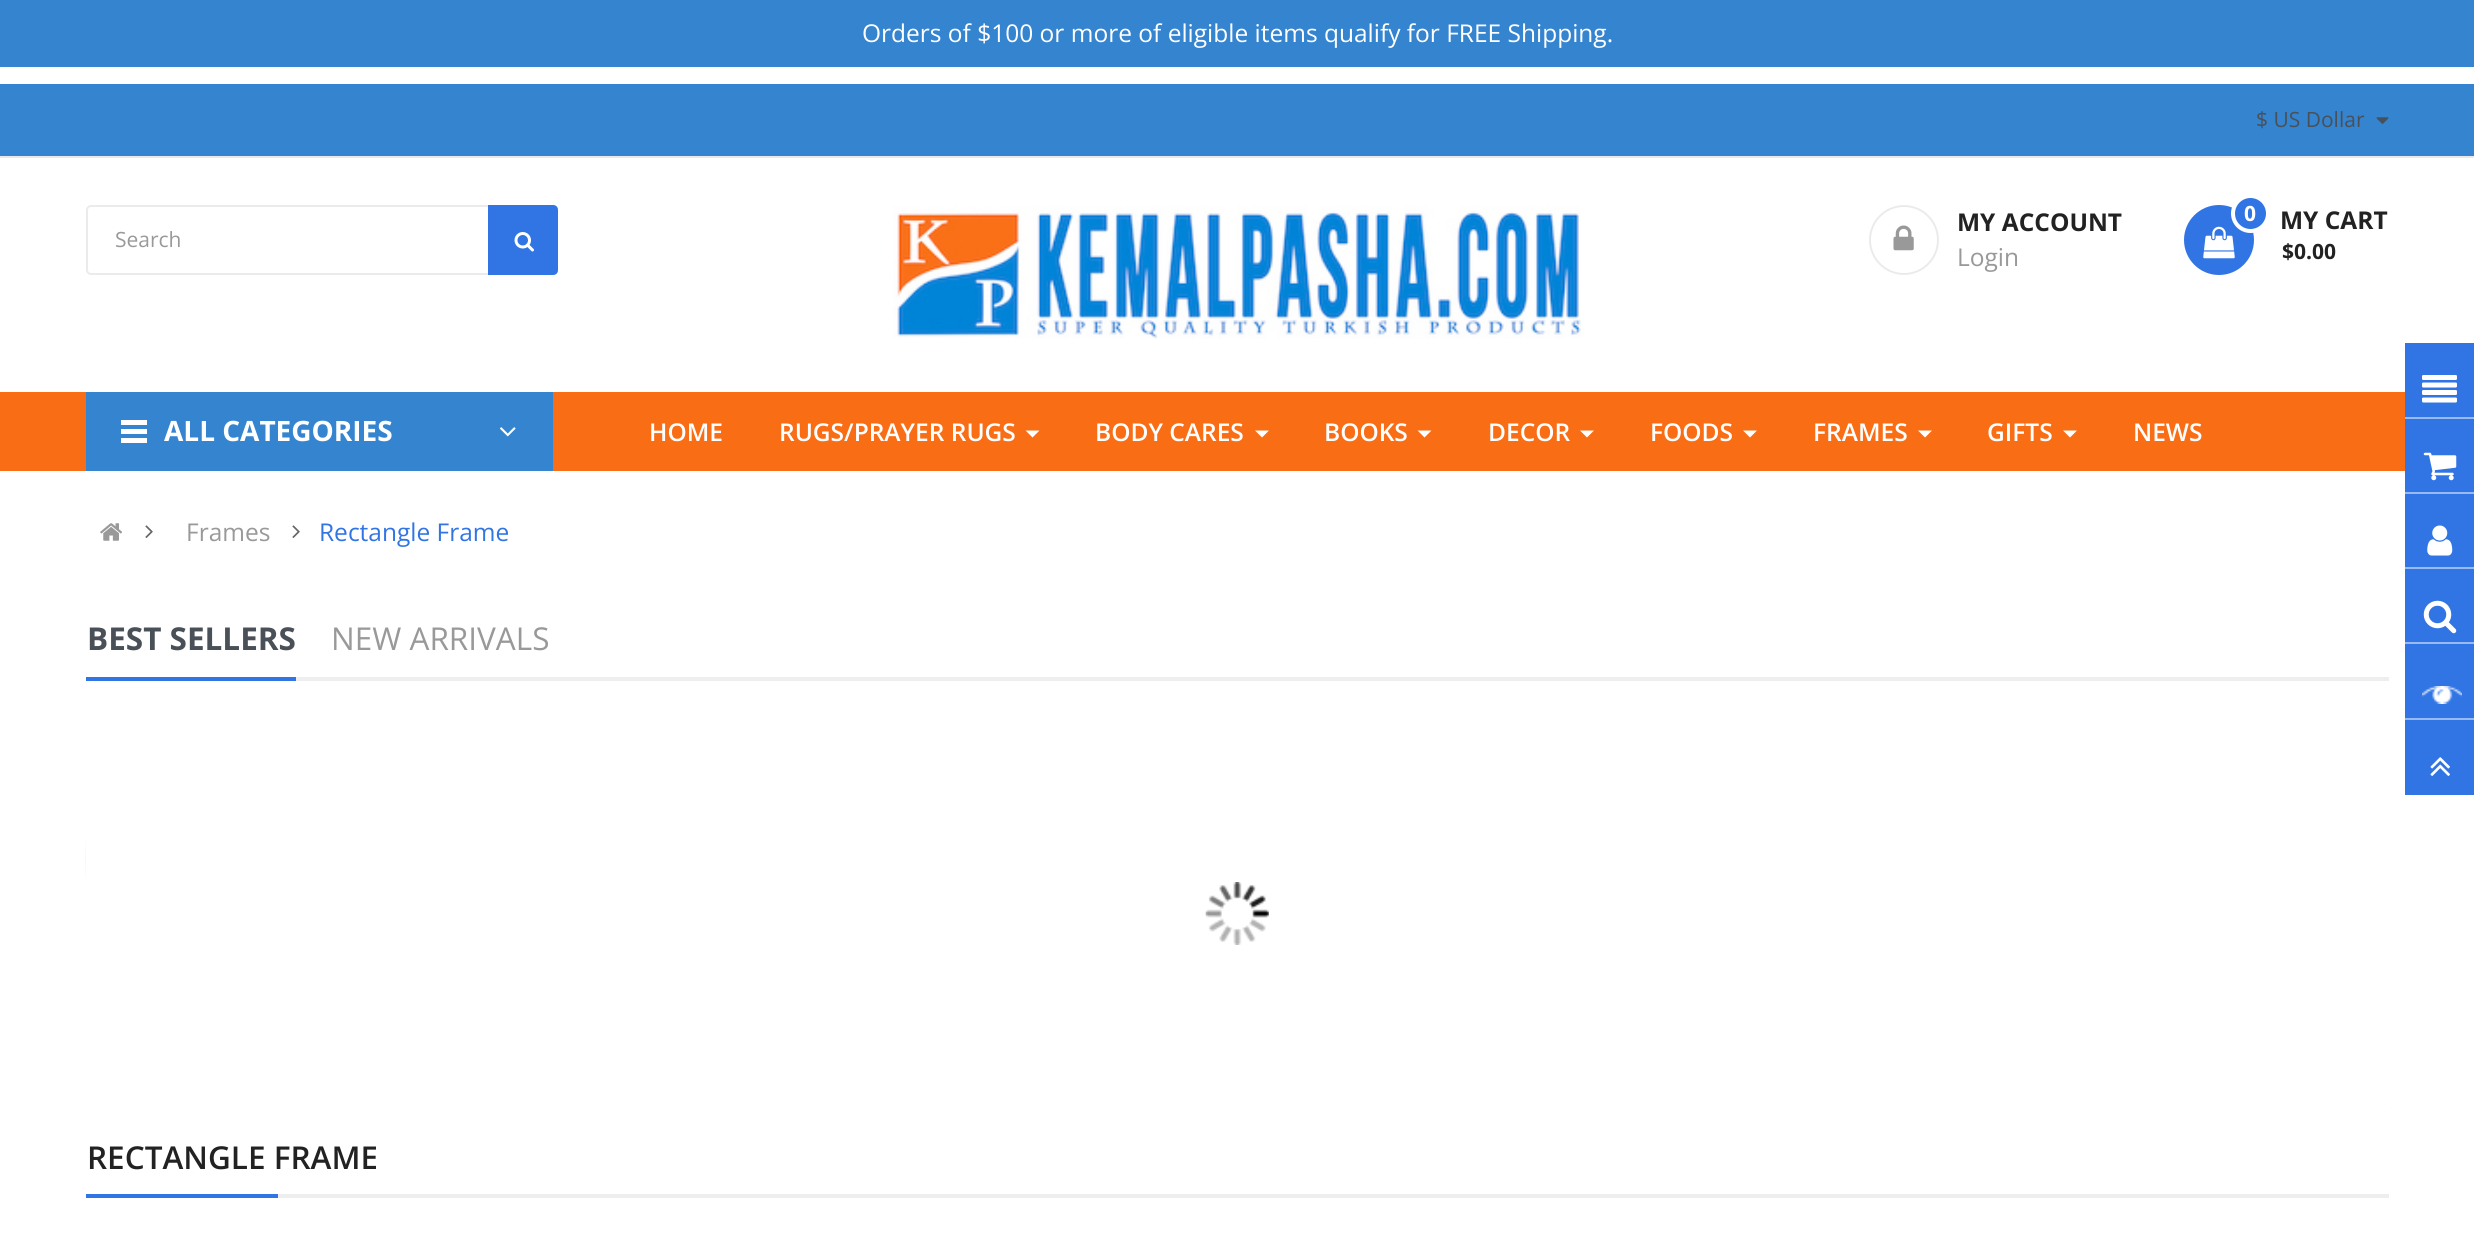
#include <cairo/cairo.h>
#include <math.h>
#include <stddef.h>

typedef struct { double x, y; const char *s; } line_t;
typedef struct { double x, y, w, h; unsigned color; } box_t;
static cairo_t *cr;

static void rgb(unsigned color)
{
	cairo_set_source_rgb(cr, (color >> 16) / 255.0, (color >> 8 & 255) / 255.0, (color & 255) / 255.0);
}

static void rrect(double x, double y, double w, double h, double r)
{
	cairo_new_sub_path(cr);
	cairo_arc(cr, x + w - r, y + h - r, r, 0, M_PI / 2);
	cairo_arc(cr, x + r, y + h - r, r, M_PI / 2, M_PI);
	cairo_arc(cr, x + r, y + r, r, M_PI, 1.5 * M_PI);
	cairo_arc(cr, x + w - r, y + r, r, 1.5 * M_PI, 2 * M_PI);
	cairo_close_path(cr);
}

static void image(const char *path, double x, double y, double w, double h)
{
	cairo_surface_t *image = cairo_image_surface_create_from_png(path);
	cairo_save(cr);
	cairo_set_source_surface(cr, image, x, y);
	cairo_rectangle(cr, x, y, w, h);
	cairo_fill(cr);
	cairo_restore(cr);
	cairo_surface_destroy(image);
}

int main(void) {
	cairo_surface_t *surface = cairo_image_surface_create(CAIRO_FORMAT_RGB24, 2474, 1249);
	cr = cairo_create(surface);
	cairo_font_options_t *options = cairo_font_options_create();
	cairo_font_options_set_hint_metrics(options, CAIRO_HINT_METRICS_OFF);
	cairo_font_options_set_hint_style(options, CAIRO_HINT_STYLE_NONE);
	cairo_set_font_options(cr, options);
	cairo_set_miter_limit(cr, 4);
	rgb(0xffffff);
	cairo_paint(cr);
	{
		static const box_t items[] = {
			{0, 0, 2474, 67, 0x3484d0},
			{0, 84, 2474, 72, 0x3484d0},
			{0, 156, 2474, 2, 0xe9e9e9},
		};
		for (size_t i = 0; i < sizeof items / sizeof *items; i++) {
			rgb(items[i].color);
			cairo_rectangle(cr, items[i].x, items[i].y, items[i].w, items[i].h);
			cairo_fill(cr);
		}
	}
	image("img/1.png", 2376, 117, 13, 7);
	rrect(87, 206, 470, 68, 4);
	rgb(0xebebeb);
	cairo_stroke(cr);
	rgb(0x3175e4);
	cairo_new_path(cr);
	cairo_move_to(cr, 488, 205);
	cairo_line_to(cr, 553, 205);
	cairo_curve_to(cr, 556, 205, 558, 207, 558, 210);
	cairo_line_to(cr, 558, 270);
	cairo_curve_to(cr, 558, 273, 556, 275, 553, 275);
	cairo_line_to(cr, 488, 275);
	cairo_close_path(cr);
	cairo_fill(cr);
	image("img/2.png", 514, 232, 20, 20);
	image("img/3.png", 893, 205, 688, 134);
	cairo_arc(cr, 1904, 240, 34, 0, 2 * M_PI);
	rgb(0xebebeb);
	cairo_stroke(cr);
	image("img/4.png", 1893, 225, 21, 26);
	rgb(0x3175e4);
	cairo_arc(cr, 2219, 240, 35, 0, 2 * M_PI);
	cairo_fill(cr);
	image("img/5.png", 2203, 226, 32, 33);
	cairo_arc(cr, 2250.5, 213.5, 17.5, 0, 2 * M_PI);
	cairo_fill_preserve(cr);
	rgb(0xffffff);
	cairo_set_line_width(cr, 4);
	cairo_stroke(cr);
	{
		static const box_t items[] = {
			{0, 392, 2405, 79, 0xf96d15},
			{86, 392, 467, 79, 0x3484d0},
			{121, 420, 26, 5, 0xffffff},
			{121, 429, 26, 5, 0xffffff},
			{121, 438, 26, 5, 0xffffff},
		};
		for (size_t i = 0; i < sizeof items / sizeof *items; i++) {
			rgb(items[i].color);
			cairo_rectangle(cr, items[i].x, items[i].y, items[i].w, items[i].h);
			cairo_fill(cr);
		}
	}
	image("img/6.png", 500, 427, 16, 10);
	cairo_new_path(cr);
	cairo_move_to(cr, 1025.5, 430.5);
	cairo_line_to(cr, 1039.5, 430.5);
	cairo_line_to(cr, 1032.5, 437.5);
	cairo_close_path(cr);
	cairo_fill(cr);
	cairo_new_path(cr);
	cairo_move_to(cr, 1255, 430.5);
	cairo_line_to(cr, 1269, 430.5);
	cairo_line_to(cr, 1262, 437.5);
	cairo_close_path(cr);
	cairo_fill(cr);
	cairo_new_path(cr);
	cairo_move_to(cr, 1417.5, 430.5);
	cairo_line_to(cr, 1431.5, 430.5);
	cairo_line_to(cr, 1424.5, 437.5);
	cairo_close_path(cr);
	cairo_fill(cr);
	cairo_new_path(cr);
	cairo_move_to(cr, 1580, 430.5);
	cairo_line_to(cr, 1594, 430.5);
	cairo_line_to(cr, 1587, 437.5);
	cairo_close_path(cr);
	cairo_fill(cr);
	cairo_new_path(cr);
	cairo_move_to(cr, 1743, 430.5);
	cairo_line_to(cr, 1757, 430.5);
	cairo_line_to(cr, 1750, 437.5);
	cairo_close_path(cr);
	cairo_fill(cr);
	cairo_new_path(cr);
	cairo_move_to(cr, 1918, 430.5);
	cairo_line_to(cr, 1932, 430.5);
	cairo_line_to(cr, 1925, 437.5);
	cairo_close_path(cr);
	cairo_fill(cr);
	cairo_new_path(cr);
	cairo_move_to(cr, 2063, 430.5);
	cairo_line_to(cr, 2077, 430.5);
	cairo_line_to(cr, 2070, 437.5);
	cairo_close_path(cr);
	cairo_fill(cr);
	image("img/7.png", 100, 523, 22, 18);
	image("img/8.png", 145, 525, 8, 13);
	image("img/8.png", 292, 525, 8, 13);
	rgb(0xeeeeee);
	cairo_rectangle(cr, 296, 677, 2093, 4);
	cairo_fill(cr);
	rgb(0x3175e4);
	cairo_rectangle(cr, 86, 677, 210, 4);
	cairo_fill(cr);
	image("img/9.png", 85, 702, 1, 317);
	rgb(0xf7f7f7);
	cairo_new_path(cr);
	cairo_move_to(cr, 2392, 698);
	cairo_line_to(cr, 2389, 698);
	cairo_line_to(cr, 2389, 1108);
	cairo_line_to(cr, 2392, 1108);
	cairo_curve_to(cr, 2389, 1108, 2387, 1106, 2387, 1103);
	cairo_line_to(cr, 2387, 703);
	cairo_curve_to(cr, 2387, 700, 2389, 698, 2392, 698);
	cairo_close_path(cr);
	cairo_fill(cr);
	rgb(0xffffff);
	cairo_rectangle(cr, 2387, 699, 2, 408);
	cairo_fill(cr);
	image("img/10.png", 1205, 882, 64, 63);
	rgb(0x3175e4);
	cairo_rectangle(cr, 2405, 343, 69, 452);
	cairo_fill(cr);
	rgb(0x98baf2);
	cairo_rectangle(cr, 2405, 417, 69, 2);
	cairo_fill(cr);
	image("img/11.png", 2422, 375, 35, 28);
	cairo_rectangle(cr, 2405, 492, 69, 2);
	cairo_fill(cr);
	image("img/12.png", 2423, 452, 34, 29);
	cairo_rectangle(cr, 2405, 567, 69, 2);
	cairo_fill(cr);
	image("img/13.png", 2427, 525, 26, 31);
	cairo_rectangle(cr, 2405, 642, 69, 2);
	cairo_fill(cr);
	image("img/14.png", 2423, 600, 34, 34);
	cairo_rectangle(cr, 2405, 718, 69, 2);
	cairo_fill(cr);
	image("img/15.png", 2422, 686, 40, 18);
	image("img/16.png", 2430, 757, 20, 19);
	rgb(0xeeeeee);
	cairo_rectangle(cr, 278, 1194, 2111, 4);
	cairo_fill(cr);
	rgb(0x3175e4);
	cairo_rectangle(cr, 86, 1194, 192, 4);
	cairo_fill(cr);
	cairo_select_font_face(cr, "Open Sans", CAIRO_FONT_SLANT_NORMAL, CAIRO_FONT_WEIGHT_NORMAL);
	cairo_set_font_size(cr, 24.5);
	rgb(0xffffff);
	cairo_move_to(cr, 862, 42);
	cairo_show_text(cr, "Orders of $100 or more of eligible items qualify for FREE Shipping.");
	cairo_set_font_size(cr, 21);
	rgb(0x495057);
	cairo_move_to(cr, 2256, 127);
	cairo_show_text(cr, "$ US Dollar");
	rgb(0x999999);
	cairo_move_to(cr, 115, 247);
	cairo_show_text(cr, "Search");
	cairo_select_font_face(cr, "Open Sans", CAIRO_FONT_SLANT_NORMAL, CAIRO_FONT_WEIGHT_BOLD);
	cairo_set_font_size(cr, 24.5);
	rgb(0x222222);
	cairo_move_to(cr, 1957, 231);
	cairo_show_text(cr, "MY ACCOUNT");
	cairo_select_font_face(cr, "Open Sans", CAIRO_FONT_SLANT_NORMAL, CAIRO_FONT_WEIGHT_NORMAL);
	rgb(0x999999);
	cairo_move_to(cr, 1957, 266);
	cairo_show_text(cr, "Login");
	cairo_select_font_face(cr, "Open Sans", CAIRO_FONT_SLANT_NORMAL, CAIRO_FONT_WEIGHT_BOLD);
	cairo_set_font_size(cr, 21);
	rgb(0xffffff);
	cairo_move_to(cr, 2244, 221);
	cairo_show_text(cr, "0");
	rgb(0x222222);
	cairo_move_to(cr, 2282, 259);
	cairo_show_text(cr, "$0.00");
	cairo_set_font_size(cr, 24.5);
	cairo_move_to(cr, 2280, 229);
	cairo_show_text(cr, "MY CART");
	cairo_set_font_size(cr, 28);
	rgb(0xffffff);
	cairo_move_to(cr, 164, 441);
	cairo_show_text(cr, "ALL CATEGORIES");
	cairo_select_font_face(cr, "Open Sans SemiBold", CAIRO_FONT_SLANT_NORMAL, CAIRO_FONT_WEIGHT_NORMAL);
	cairo_set_font_size(cr, 24.5);
	{
		static const line_t items[] = {
			{649, 441, "HOME"},
			{779, 441, "RUGS/PRAYER RUGS"},
			{1095, 441, "BODY CARES"},
			{1324, 441, "BOOKS"},
			{1488, 441, "DECOR"},
			{1650, 441, "FOODS"},
			{1813, 441, "FRAMES"},
			{1987, 441, "GIFTS"},
			{2133, 441, "NEWS"},
		};
		for (size_t i = 0; i < sizeof items / sizeof *items; i++) {
			cairo_move_to(cr, items[i].x, items[i].y);
			cairo_show_text(cr, items[i].s);
		}
	}
	cairo_select_font_face(cr, "Open Sans", CAIRO_FONT_SLANT_NORMAL, CAIRO_FONT_WEIGHT_NORMAL);
	rgb(0x999999);
	cairo_move_to(cr, 186, 541);
	cairo_show_text(cr, "Frames");
	rgb(0x3175e4);
	cairo_move_to(cr, 319, 541);
	cairo_show_text(cr, "Rectangle Frame");
	cairo_select_font_face(cr, "Open Sans", CAIRO_FONT_SLANT_NORMAL, CAIRO_FONT_WEIGHT_BOLD);
	cairo_set_font_size(cr, 31.5);
	rgb(0x495057);
	cairo_move_to(cr, 87, 650);
	cairo_show_text(cr, "BEST SELLERS");
	cairo_select_font_face(cr, "Open Sans", CAIRO_FONT_SLANT_NORMAL, CAIRO_FONT_WEIGHT_NORMAL);
	rgb(0x999999);
	cairo_move_to(cr, 331, 650);
	cairo_show_text(cr, "NEW ARRIVALS");
	cairo_select_font_face(cr, "Open Sans SemiBold", CAIRO_FONT_SLANT_NORMAL, CAIRO_FONT_WEIGHT_NORMAL);
	rgb(0x222222);
	cairo_move_to(cr, 87, 1169);
	cairo_show_text(cr, "RECTANGLE FRAME");
	cairo_surface_write_to_png(surface, "page.png");
	cairo_font_options_destroy(options);
	cairo_destroy(cr);
	cairo_surface_destroy(surface);
	return 0;
}
